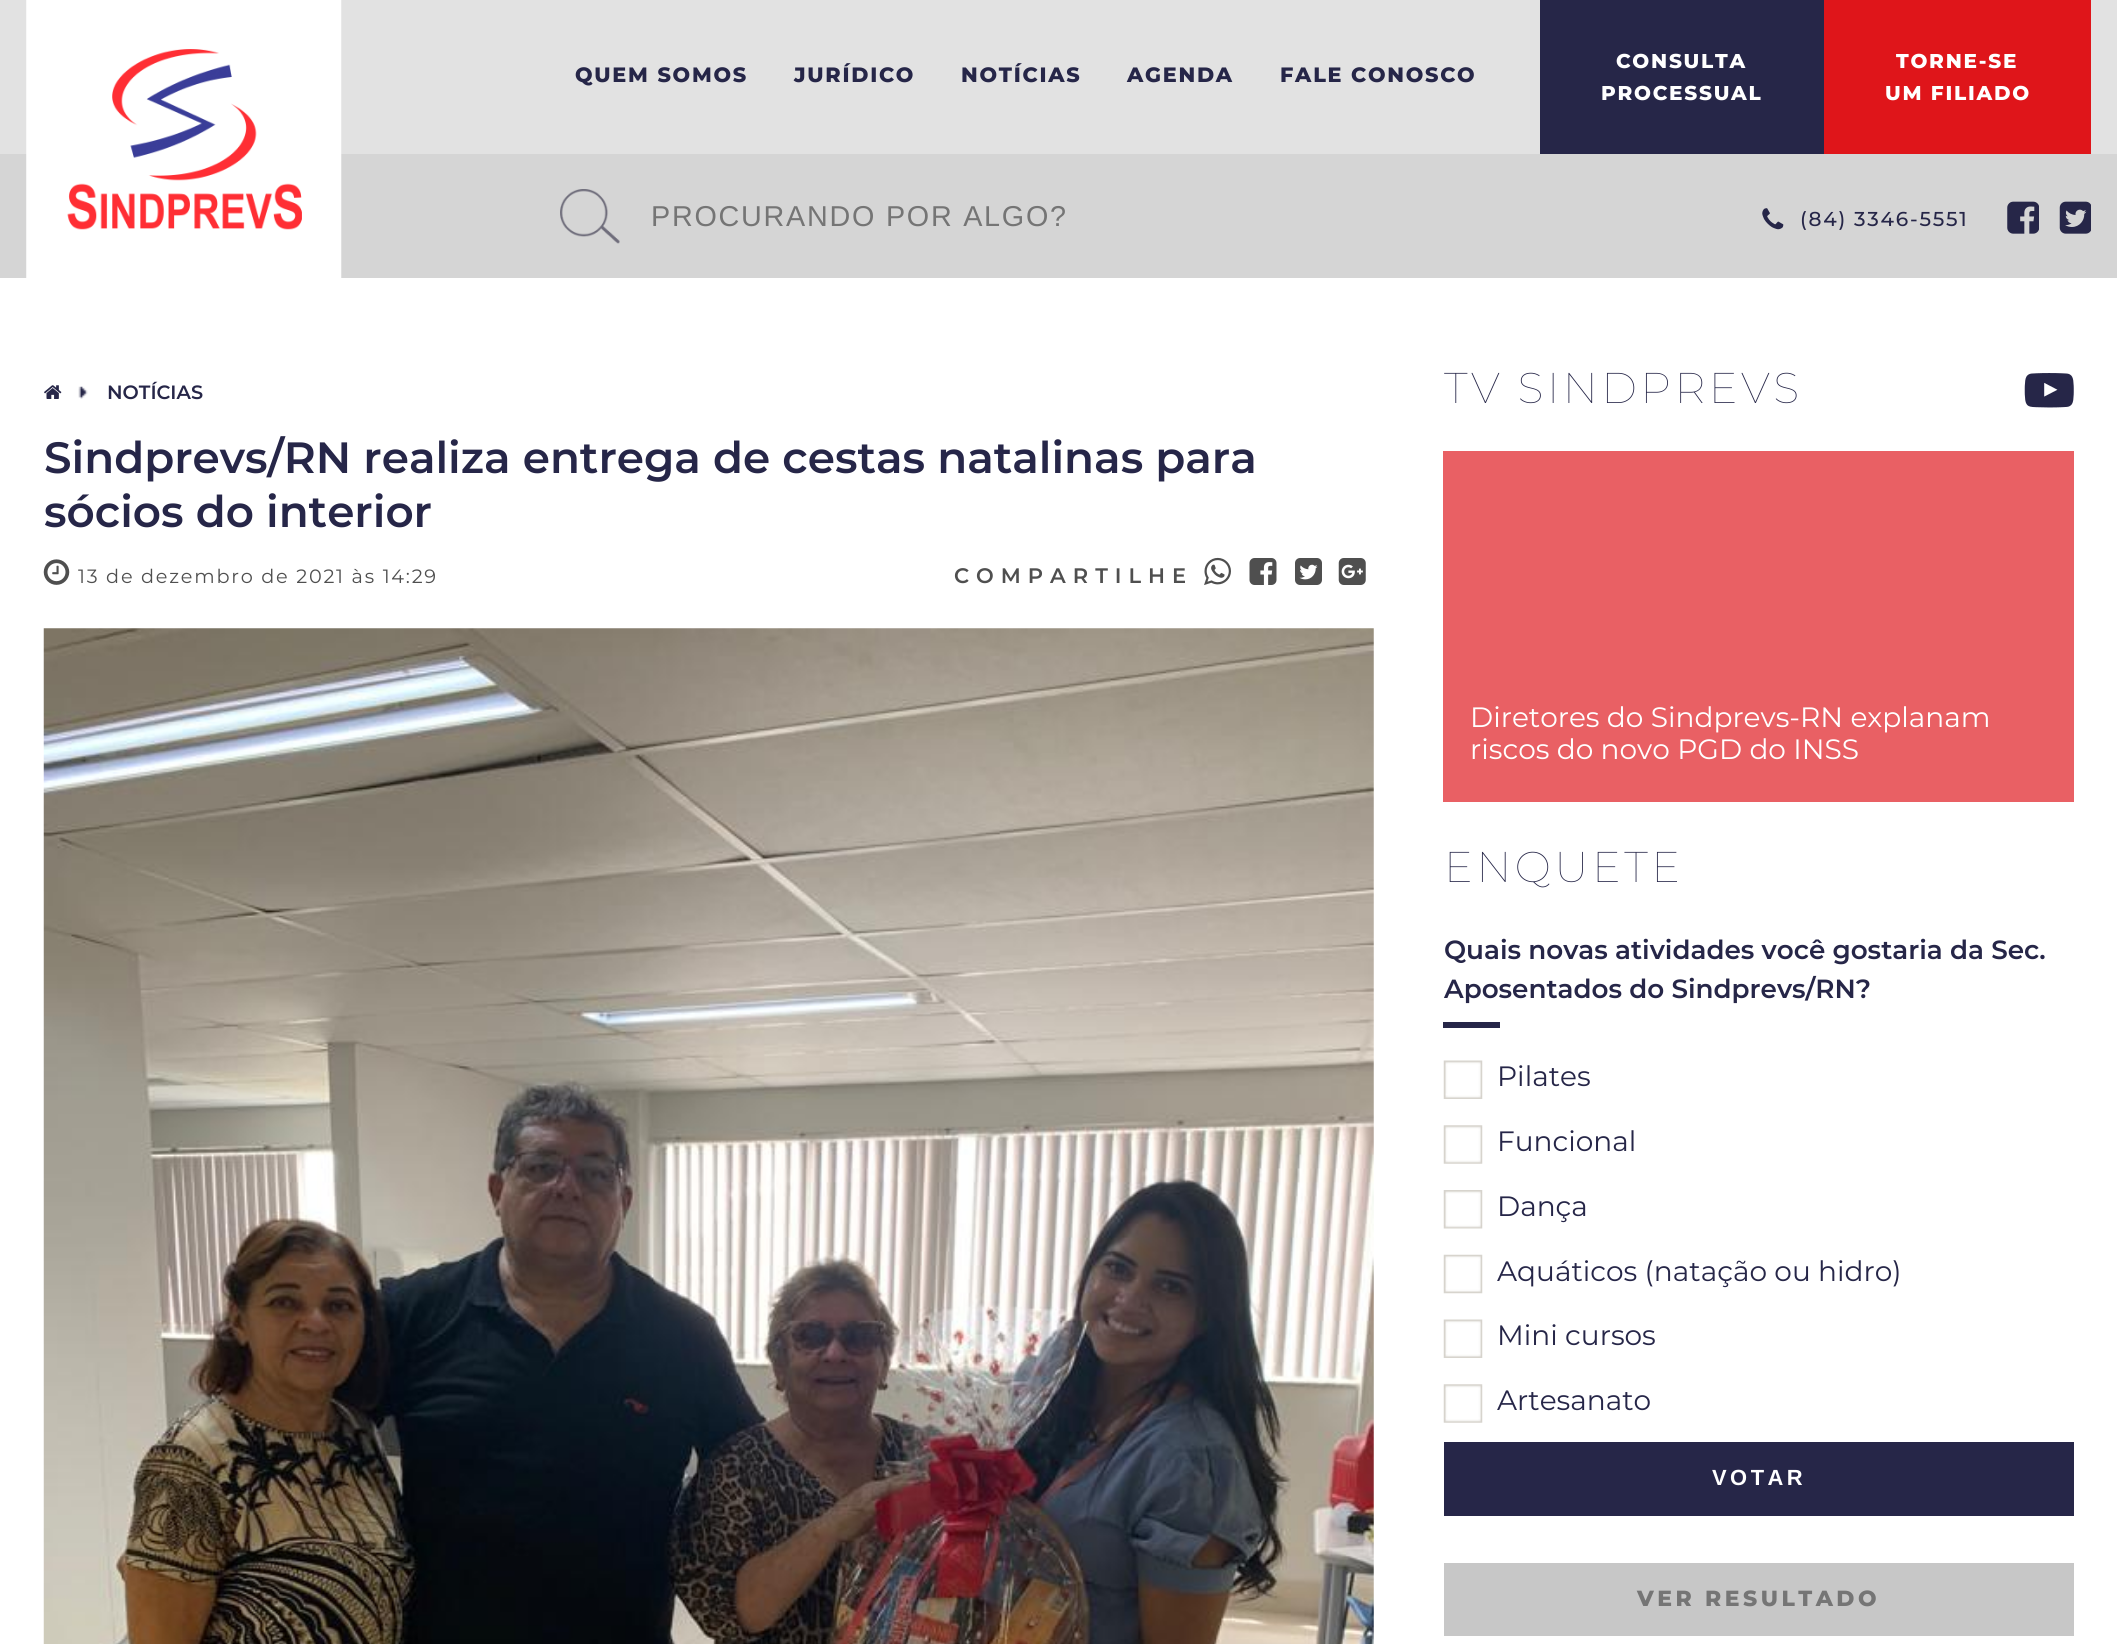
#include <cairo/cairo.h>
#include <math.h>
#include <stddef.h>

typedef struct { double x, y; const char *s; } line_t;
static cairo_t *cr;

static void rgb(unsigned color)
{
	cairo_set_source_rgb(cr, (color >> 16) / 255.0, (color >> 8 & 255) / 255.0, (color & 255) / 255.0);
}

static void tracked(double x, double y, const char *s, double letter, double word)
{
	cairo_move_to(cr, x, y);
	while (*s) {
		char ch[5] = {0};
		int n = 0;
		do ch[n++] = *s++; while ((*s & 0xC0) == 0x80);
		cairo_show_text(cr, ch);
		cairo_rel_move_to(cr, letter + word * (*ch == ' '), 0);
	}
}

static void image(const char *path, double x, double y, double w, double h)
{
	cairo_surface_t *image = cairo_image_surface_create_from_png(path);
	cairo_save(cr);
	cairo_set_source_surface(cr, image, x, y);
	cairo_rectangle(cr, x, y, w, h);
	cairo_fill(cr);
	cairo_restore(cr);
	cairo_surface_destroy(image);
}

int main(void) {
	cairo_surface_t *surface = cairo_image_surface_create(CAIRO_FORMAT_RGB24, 2117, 1644);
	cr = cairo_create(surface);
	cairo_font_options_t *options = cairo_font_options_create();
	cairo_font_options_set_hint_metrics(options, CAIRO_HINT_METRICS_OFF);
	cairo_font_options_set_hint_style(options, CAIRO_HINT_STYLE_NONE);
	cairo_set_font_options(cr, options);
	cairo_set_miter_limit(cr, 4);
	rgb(0xffffff);
	cairo_paint(cr);
	rgb(0xe2e2e2);
	cairo_rectangle(cr, 0, 0, 2117, 154);
	cairo_fill(cr);
	rgb(0xd5d5d5);
	cairo_rectangle(cr, 0, 154, 2117, 124);
	cairo_fill(cr);
	image("img/1.png", 26, 0, 316, 278);
	rgb(0x262648);
	cairo_rectangle(cr, 1540, 0, 284, 154);
	cairo_fill(cr);
	rgb(0xdf151a);
	cairo_rectangle(cr, 1824, 0, 267, 154);
	cairo_fill(cr);
	image("img/2.png", 560, 189, 60, 55);
	image("img/3.png", 1762, 208, 22, 22);
	image("img/4.png", 2007, 201, 32, 33);
	image("img/5.png", 2059, 201, 32, 33);
	image("img/6.png", 44, 385, 18, 14);
	image("img/7.png", 78, 386, 10, 13);
	image("img/8.png", 43, 559, 27, 26);
	image("img/9.png", 1204, 557, 27, 28);
	image("img/10.png", 1249, 558, 28, 27);
	image("img/11.png", 1295, 558, 27, 27);
	image("img/12.png", 1338, 558, 28, 27);
	image("img/13.png", 43, 628, 1331, 1016);
	image("img/14.png", 2024, 373, 50, 35);
	rgb(0xe96064);
	cairo_rectangle(cr, 1443, 451, 631, 351);
	cairo_fill(cr);
	rgb(0x262648);
	cairo_rectangle(cr, 1443, 1022, 57, 6);
	cairo_fill(cr);
	image("img/15.png", 1443, 1060, 40, 39);
	image("img/16.png", 1443, 1125, 40, 39);
	image("img/17.png", 1443, 1190, 40, 39);
	image("img/18.png", 1443, 1254, 40, 40);
	image("img/15.png", 1443, 1319, 40, 39);
	image("img/16.png", 1443, 1384, 40, 39);
	cairo_rectangle(cr, 1444, 1442, 630, 74);
	cairo_fill(cr);
	rgb(0xc7c7c7);
	cairo_rectangle(cr, 1444, 1563, 630, 73);
	cairo_fill(cr);
	cairo_select_font_face(cr, "Montserrat ExtraBold", CAIRO_FONT_SLANT_NORMAL, CAIRO_FONT_WEIGHT_NORMAL);
	cairo_set_font_size(cr, 20.75);
	rgb(0x262648);
	{
		static const line_t items[] = {
			{575, 82, "QUEM SOMOS"},
			{794, 82, "JURÍDICO"},
			{961, 82, "NOTÍCIAS"},
			{1127, 82, "AGENDA"},
			{1280, 82, "FALE CONOSCO"},
		};
		for (size_t i = 0; i < sizeof items / sizeof *items; i++) {
			tracked(items[i].x, items[i].y, items[i].s, 1.75, 0);
		}
	}
	cairo_set_font_size(cr, 20);
	rgb(0xffffff);
	{
		static const line_t items[] = {
			{1616, 68, "CONSULTA"},
			{1601, 100, "PROCESSUAL"},
			{1896, 68, "TORNE-SE"},
			{1885, 100, "UM FILIADO"},
		};
		for (size_t i = 0; i < sizeof items / sizeof *items; i++) {
			tracked(items[i].x, items[i].y, items[i].s, 1.75, 0);
		}
	}
	cairo_select_font_face(cr, "Liberation Sans", CAIRO_FONT_SLANT_NORMAL, CAIRO_FONT_WEIGHT_NORMAL);
	cairo_set_font_size(cr, 28.75);
	rgb(0x757575);
	tracked(651, 226, "PROCURANDO POR ALGO?", 1.75, 0);
	cairo_select_font_face(cr, "Montserrat Medium", CAIRO_FONT_SLANT_NORMAL, CAIRO_FONT_WEIGHT_NORMAL);
	cairo_set_font_size(cr, 20.1);
	rgb(0x262648);
	tracked(1800, 226, "(84) 3346-5551", 1.75, 0);
	cairo_select_font_face(cr, "Montserrat SemiBold", CAIRO_FONT_SLANT_NORMAL, CAIRO_FONT_WEIGHT_NORMAL);
	cairo_set_font_size(cr, 19.25);
	cairo_move_to(cr, 107, 399);
	cairo_show_text(cr, "NOTÍCIAS");
	cairo_set_font_size(cr, 43.75);
	cairo_move_to(cr, 44, 473);
	cairo_show_text(cr, "Sindprevs/RN realiza entrega de cestas natalinas para");
	cairo_move_to(cr, 44, 527);
	cairo_show_text(cr, "sócios do interior");
	cairo_select_font_face(cr, "Montserrat", CAIRO_FONT_SLANT_NORMAL, CAIRO_FONT_WEIGHT_NORMAL);
	cairo_set_font_size(cr, 19.25);
	rgb(0x4f4f4f);
	tracked(78, 583, "13 de dezembro de 2021 às 14:29", 1.75, 0);
	cairo_select_font_face(cr, "Montserrat SemiBold", CAIRO_FONT_SLANT_NORMAL, CAIRO_FONT_WEIGHT_NORMAL);
	cairo_set_font_size(cr, 21);
	tracked(954, 583, "COMPARTILHE", 7, 0);
	cairo_select_font_face(cr, "Montserrat Thin", CAIRO_FONT_SLANT_NORMAL, CAIRO_FONT_WEIGHT_NORMAL);
	cairo_set_font_size(cr, 43);
	rgb(0x262648);
	tracked(1444, 403, "TV SINDPREVS", 3.5, 0);
	cairo_select_font_face(cr, "Montserrat", CAIRO_FONT_SLANT_NORMAL, CAIRO_FONT_WEIGHT_NORMAL);
	cairo_set_font_size(cr, 28);
	rgb(0xffffff);
	cairo_move_to(cr, 1470, 727);
	cairo_show_text(cr, "Diretores do Sindprevs-RN explanam");
	cairo_move_to(cr, 1470, 759);
	cairo_show_text(cr, "riscos do novo PGD do INSS");
	cairo_select_font_face(cr, "Montserrat Thin", CAIRO_FONT_SLANT_NORMAL, CAIRO_FONT_WEIGHT_NORMAL);
	cairo_set_font_size(cr, 43);
	rgb(0x262648);
	tracked(1444, 882, "ENQUETE", 3.5, 0);
	cairo_select_font_face(cr, "Montserrat SemiBold", CAIRO_FONT_SLANT_NORMAL, CAIRO_FONT_WEIGHT_NORMAL);
	cairo_set_font_size(cr, 26.25);
	cairo_move_to(cr, 1444, 959);
	cairo_show_text(cr, "Quais novas atividades você gostaria da Sec.");
	cairo_move_to(cr, 1444, 998);
	cairo_show_text(cr, "Aposentados do Sindprevs/RN?");
	cairo_select_font_face(cr, "Montserrat", CAIRO_FONT_SLANT_NORMAL, CAIRO_FONT_WEIGHT_NORMAL);
	cairo_set_font_size(cr, 28);
	{
		static const line_t items[] = {
			{1497, 1086, "Pilates"},
			{1497, 1151, "Funcional"},
			{1497, 1216, "Dança"},
			{1497, 1281, "Aquáticos (natação ou hidro)"},
			{1497, 1345, "Mini cursos"},
			{1497, 1410, "Artesanato"},
		};
		for (size_t i = 0; i < sizeof items / sizeof *items; i++) {
			cairo_move_to(cr, items[i].x, items[i].y);
			cairo_show_text(cr, items[i].s);
		}
	}
	cairo_select_font_face(cr, "Liberation Sans", CAIRO_FONT_SLANT_NORMAL, CAIRO_FONT_WEIGHT_BOLD);
	cairo_set_font_size(cr, 21.9);
	rgb(0xffffff);
	tracked(1712, 1485, "VOTAR", 3.5, 0);
	cairo_select_font_face(cr, "Montserrat ExtraBold", CAIRO_FONT_SLANT_NORMAL, CAIRO_FONT_WEIGHT_NORMAL);
	rgb(0x757575);
	tracked(1637, 1606, "VER RESULTADO", 3.5, 0);
	cairo_surface_write_to_png(surface, "page.png");
	cairo_font_options_destroy(options);
	cairo_destroy(cr);
	cairo_surface_destroy(surface);
	return 0;
}
